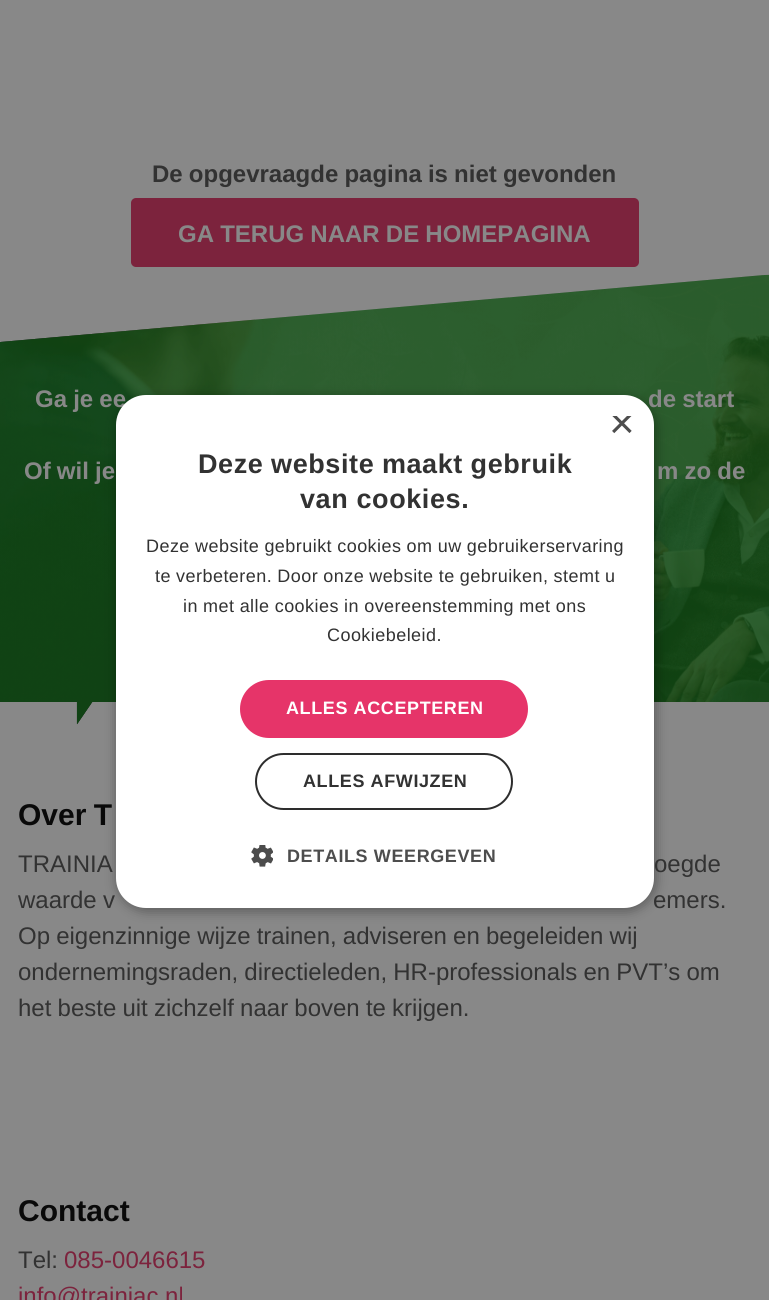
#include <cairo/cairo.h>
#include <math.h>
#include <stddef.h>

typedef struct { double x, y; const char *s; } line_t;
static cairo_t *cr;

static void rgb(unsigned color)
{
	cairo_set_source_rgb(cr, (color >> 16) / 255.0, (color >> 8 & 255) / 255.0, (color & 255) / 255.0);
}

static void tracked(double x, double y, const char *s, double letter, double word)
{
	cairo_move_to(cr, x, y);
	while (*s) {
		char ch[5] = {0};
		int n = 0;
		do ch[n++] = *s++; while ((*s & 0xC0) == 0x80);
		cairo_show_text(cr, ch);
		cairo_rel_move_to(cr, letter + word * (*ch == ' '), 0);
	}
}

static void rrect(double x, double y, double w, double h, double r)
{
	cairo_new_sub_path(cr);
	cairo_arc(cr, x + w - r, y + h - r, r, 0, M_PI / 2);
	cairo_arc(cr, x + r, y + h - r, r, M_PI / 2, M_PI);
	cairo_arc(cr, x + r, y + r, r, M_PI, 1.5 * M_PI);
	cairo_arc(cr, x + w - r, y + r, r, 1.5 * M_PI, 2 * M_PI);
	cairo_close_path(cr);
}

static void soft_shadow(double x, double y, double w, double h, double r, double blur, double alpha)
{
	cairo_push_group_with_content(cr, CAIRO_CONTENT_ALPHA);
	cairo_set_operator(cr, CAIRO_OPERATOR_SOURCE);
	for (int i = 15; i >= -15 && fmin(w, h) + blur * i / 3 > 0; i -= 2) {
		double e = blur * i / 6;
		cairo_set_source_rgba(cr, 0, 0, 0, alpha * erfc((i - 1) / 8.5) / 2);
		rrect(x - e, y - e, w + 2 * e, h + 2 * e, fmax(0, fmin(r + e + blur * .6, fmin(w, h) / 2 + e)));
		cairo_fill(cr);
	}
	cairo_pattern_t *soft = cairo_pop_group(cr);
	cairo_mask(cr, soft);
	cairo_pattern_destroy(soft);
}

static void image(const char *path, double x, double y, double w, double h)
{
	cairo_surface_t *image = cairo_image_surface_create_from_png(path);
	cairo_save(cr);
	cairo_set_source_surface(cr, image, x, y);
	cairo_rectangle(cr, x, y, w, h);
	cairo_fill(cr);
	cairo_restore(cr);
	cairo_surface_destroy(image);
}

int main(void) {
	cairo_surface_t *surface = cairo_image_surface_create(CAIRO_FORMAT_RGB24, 769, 1300);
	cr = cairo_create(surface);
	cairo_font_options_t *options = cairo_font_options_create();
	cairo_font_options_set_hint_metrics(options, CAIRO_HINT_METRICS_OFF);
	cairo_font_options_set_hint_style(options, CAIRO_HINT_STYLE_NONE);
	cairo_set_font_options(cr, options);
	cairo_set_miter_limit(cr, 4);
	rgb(0x888888);
	cairo_paint(cr);
	rgb(0x7c233d);
	rrect(131, 198, 508, 69, 5);
	cairo_fill(cr);
	image("img/1.png", 0, 274, 769, 451);
	rgb(0x000000);
	soft_shadow(117, 398, 539, 513, 30, 6, 0.35);
	cairo_select_font_face(cr, "Liberation Sans", CAIRO_FONT_SLANT_NORMAL, CAIRO_FONT_WEIGHT_BOLD);
	cairo_set_font_size(cr, 24);
	rgb(0x323232);
	tracked(152, 182, "De opgevraagde pagina is niet gevonden", 0, -0.5);
	rgb(0x888888);
	{
		static const line_t items[] = {
			{178, 242, "GA TERUG NAAR DE HOMEPAGINA"},
			{35, 407, "Ga je ee"},
			{648, 407, "de start"},
			{24, 479, "Of wil je"},
			{657, 479, "m zo de"},
		};
		for (size_t i = 0; i < sizeof items / sizeof *items; i++) {
			tracked(items[i].x, items[i].y, items[i].s, 0, -0.5);
		}
	}
	rgb(0xffffff);
	rrect(116, 395, 538, 513, 30);
	cairo_fill(cr);
	cairo_save(cr);
	cairo_rectangle(cr, 609, 416, 23, 22);
	cairo_clip(cr);
	cairo_select_font_face(cr, "Liberation Sans", CAIRO_FONT_SLANT_NORMAL, CAIRO_FONT_WEIGHT_NORMAL);
	cairo_set_font_size(cr, 44);
	rgb(0x4d4d4d);
	cairo_move_to(cr, 609, 438);
	cairo_show_text(cr, "×");
	cairo_restore(cr);
	cairo_set_font_size(cr, 27);
	rgb(0x323232);
	tracked(198, 473, "Deze website maakt gebruik", 0.6, -0.5);
	tracked(300, 508, "van cookies.", 0.6, 0);
	cairo_select_font_face(cr, "Liberation Sans", CAIRO_FONT_SLANT_NORMAL, CAIRO_FONT_WEIGHT_NORMAL);
	cairo_set_font_size(cr, 18);
	{
		static const line_t items[] = {
			{146, 552, "Deze website gebruikt cookies om uw gebruikerservaring"},
			{155, 582, "te verbeteren. Door onze website te gebruiken, stemt u"},
			{183, 612, "in met alle cookies in overeenstemming met ons"},
		};
		for (size_t i = 0; i < sizeof items / sizeof *items; i++) {
			tracked(items[i].x, items[i].y, items[i].s, 0.45, -0.25);
		}
	}
	tracked(327, 641, "Cookiebeleid.", 0.45, 0);
	rgb(0xe63469);
	rrect(240, 680, 288, 58, 29);
	cairo_fill(cr);
	cairo_select_font_face(cr, "Liberation Sans", CAIRO_FONT_SLANT_NORMAL, CAIRO_FONT_WEIGHT_BOLD);
	rgb(0xffffff);
	tracked(286, 714, "ALLES ACCEPTEREN", 0.6, 0);
	rrect(256, 754, 256, 55, 27.5);
	rgb(0x2d2d2d);
	cairo_stroke(cr);
	rgb(0x323232);
	tracked(303, 787, "ALLES AFWIJZEN", 0.6, 0);
	image("img/2.png", 251, 845, 22, 22);
	rgb(0x4d4d4d);
	tracked(287, 862, "DETAILS WEERGEVEN", 0.6, 0);
	cairo_set_font_size(cr, 30);
	rgb(0x090909);
	tracked(18, 825, "Over T", 0, -1);
	cairo_select_font_face(cr, "Liberation Sans", CAIRO_FONT_SLANT_NORMAL, CAIRO_FONT_WEIGHT_NORMAL);
	cairo_set_font_size(cr, 24);
	rgb(0x323232);
	{
		static const line_t items[] = {
			{18, 872, "TRAINIA"},
			{654, 872, "oegde"},
			{18, 908, "waarde v"},
			{653, 908, "emers."},
			{18, 944, "Op eigenzinnige wijze trainen, adviseren en begeleiden wij"},
			{18, 980, "ondernemingsraden, directieleden, HR-professionals en PVT’s om"},
			{18, 1016, "het beste uit zichzelf naar boven te krijgen."},
		};
		for (size_t i = 0; i < sizeof items / sizeof *items; i++) {
			tracked(items[i].x, items[i].y, items[i].s, 0, -0.5);
		}
	}
	cairo_select_font_face(cr, "Liberation Sans", CAIRO_FONT_SLANT_NORMAL, CAIRO_FONT_WEIGHT_BOLD);
	cairo_set_font_size(cr, 30);
	rgb(0x090909);
	cairo_move_to(cr, 18, 1221);
	cairo_show_text(cr, "Contact");
	cairo_select_font_face(cr, "Liberation Sans", CAIRO_FONT_SLANT_NORMAL, CAIRO_FONT_WEIGHT_NORMAL);
	cairo_set_font_size(cr, 24);
	rgb(0x323232);
	cairo_move_to(cr, 18, 1268);
	cairo_show_text(cr, "Tel:");
	rgb(0x7c233d);
	cairo_move_to(cr, 64, 1268);
	cairo_show_text(cr, "085-0046615");
	cairo_move_to(cr, 18, 1304);
	cairo_show_text(cr, "info@trainiac.nl");
	cairo_surface_write_to_png(surface, "page.png");
	cairo_font_options_destroy(options);
	cairo_destroy(cr);
	cairo_surface_destroy(surface);
	return 0;
}
